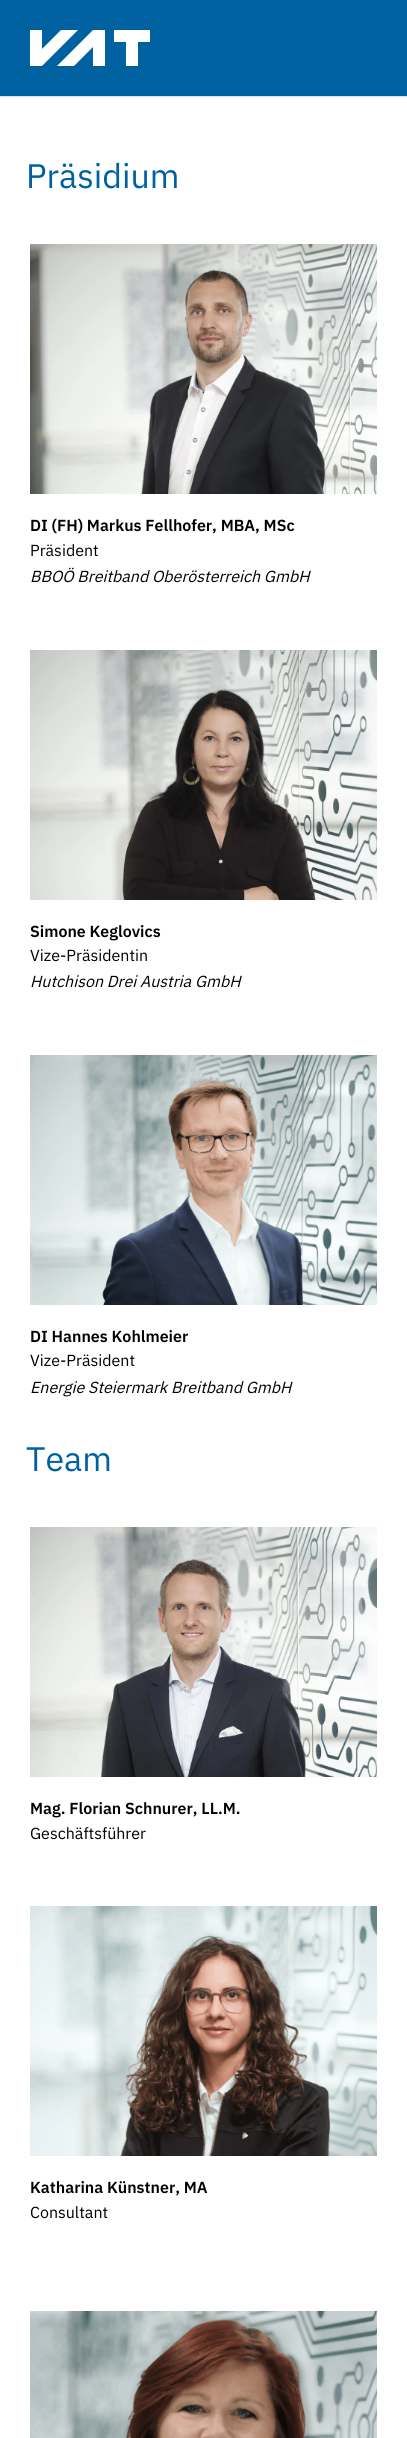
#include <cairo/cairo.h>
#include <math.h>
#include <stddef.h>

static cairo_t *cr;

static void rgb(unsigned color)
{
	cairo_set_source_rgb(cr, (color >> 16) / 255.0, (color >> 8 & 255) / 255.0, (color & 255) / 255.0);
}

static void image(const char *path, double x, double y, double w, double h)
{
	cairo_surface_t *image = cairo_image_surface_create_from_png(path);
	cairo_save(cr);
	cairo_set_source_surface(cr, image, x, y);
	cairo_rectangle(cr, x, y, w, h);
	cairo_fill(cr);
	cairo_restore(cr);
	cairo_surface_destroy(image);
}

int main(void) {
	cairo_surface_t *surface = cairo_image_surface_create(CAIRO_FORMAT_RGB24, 407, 2438);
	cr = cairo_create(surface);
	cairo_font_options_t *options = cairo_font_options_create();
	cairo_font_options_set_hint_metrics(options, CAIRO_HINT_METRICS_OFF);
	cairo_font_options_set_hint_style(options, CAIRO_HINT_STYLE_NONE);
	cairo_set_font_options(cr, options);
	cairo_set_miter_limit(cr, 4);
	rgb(0xffffff);
	cairo_paint(cr);
	rgb(0x0061a1);
	cairo_rectangle(cr, 0, 0, 407, 96);
	cairo_fill(cr);
	rgb(0xdddddd);
	cairo_rectangle(cr, 0, 96, 407, 1);
	cairo_fill(cr);
	rgb(0xffffff);
	cairo_new_path(cr);
	cairo_move_to(cr, 93, 30);
	cairo_line_to(cr, 57, 66);
	cairo_line_to(cr, 74, 66);
	cairo_line_to(cr, 93, 47);
	cairo_line_to(cr, 93, 66);
	cairo_line_to(cr, 105, 66);
	cairo_line_to(cr, 105, 30);
	cairo_close_path(cr);
	cairo_fill(cr);
	cairo_new_path(cr);
	cairo_move_to(cr, 150, 30);
	cairo_line_to(cr, 114, 30);
	cairo_line_to(cr, 114, 42);
	cairo_line_to(cr, 126, 42);
	cairo_line_to(cr, 126, 66);
	cairo_line_to(cr, 138, 66);
	cairo_line_to(cr, 138, 42);
	cairo_line_to(cr, 150, 42);
	cairo_close_path(cr);
	cairo_fill(cr);
	cairo_new_path(cr);
	cairo_move_to(cr, 78, 30);
	cairo_line_to(cr, 61, 30);
	cairo_line_to(cr, 42, 49);
	cairo_line_to(cr, 42, 30);
	cairo_line_to(cr, 30, 30);
	cairo_line_to(cr, 30, 66);
	cairo_line_to(cr, 42, 66);
	cairo_close_path(cr);
	cairo_fill(cr);
	image("img/1.png", 30, 244, 347, 250);
	image("img/2.png", 30, 650, 347, 250);
	image("img/3.png", 30, 1055, 347, 250);
	image("img/4.png", 30, 1527, 347, 250);
	image("img/5.png", 30, 1906, 347, 250);
	image("img/6.png", 30, 2311, 347, 127);
	cairo_select_font_face(cr, "IBM Plex Sans", CAIRO_FONT_SLANT_NORMAL, CAIRO_FONT_WEIGHT_NORMAL);
	cairo_set_font_size(cr, 34);
	rgb(0x0061a1);
	cairo_move_to(cr, 26, 188);
	cairo_show_text(cr, "Präsidium");
	cairo_select_font_face(cr, "IBM Plex Sans SemiBold", CAIRO_FONT_SLANT_NORMAL, CAIRO_FONT_WEIGHT_NORMAL);
	cairo_set_font_size(cr, 16);
	rgb(0x000000);
	cairo_move_to(cr, 30, 531);
	cairo_show_text(cr, "DI (FH) Markus Fellhofer, MBA, MSc");
	cairo_select_font_face(cr, "IBM Plex Sans", CAIRO_FONT_SLANT_NORMAL, CAIRO_FONT_WEIGHT_NORMAL);
	cairo_move_to(cr, 30, 556);
	cairo_show_text(cr, "Präsident");
	cairo_select_font_face(cr, "IBM Plex Sans", CAIRO_FONT_SLANT_ITALIC, CAIRO_FONT_WEIGHT_NORMAL);
	cairo_move_to(cr, 30, 582);
	cairo_show_text(cr, "BBOÖ Breitband Oberösterreich GmbH");
	cairo_select_font_face(cr, "IBM Plex Sans SemiBold", CAIRO_FONT_SLANT_NORMAL, CAIRO_FONT_WEIGHT_NORMAL);
	cairo_move_to(cr, 30, 937);
	cairo_show_text(cr, "Simone Keglovics");
	cairo_select_font_face(cr, "IBM Plex Sans", CAIRO_FONT_SLANT_NORMAL, CAIRO_FONT_WEIGHT_NORMAL);
	cairo_move_to(cr, 30, 961);
	cairo_show_text(cr, "Vize-Präsidentin");
	cairo_select_font_face(cr, "IBM Plex Sans", CAIRO_FONT_SLANT_ITALIC, CAIRO_FONT_WEIGHT_NORMAL);
	cairo_move_to(cr, 30, 987);
	cairo_show_text(cr, "Hutchison Drei Austria GmbH");
	cairo_select_font_face(cr, "IBM Plex Sans SemiBold", CAIRO_FONT_SLANT_NORMAL, CAIRO_FONT_WEIGHT_NORMAL);
	cairo_move_to(cr, 30, 1342);
	cairo_show_text(cr, "DI Hannes Kohlmeier");
	cairo_select_font_face(cr, "IBM Plex Sans", CAIRO_FONT_SLANT_NORMAL, CAIRO_FONT_WEIGHT_NORMAL);
	cairo_move_to(cr, 30, 1366);
	cairo_show_text(cr, "Vize-Präsident");
	cairo_select_font_face(cr, "IBM Plex Sans", CAIRO_FONT_SLANT_ITALIC, CAIRO_FONT_WEIGHT_NORMAL);
	cairo_move_to(cr, 30, 1393);
	cairo_show_text(cr, "Energie Steiermark Breitband GmbH");
	cairo_select_font_face(cr, "IBM Plex Sans", CAIRO_FONT_SLANT_NORMAL, CAIRO_FONT_WEIGHT_NORMAL);
	cairo_set_font_size(cr, 34);
	rgb(0x0061a1);
	cairo_move_to(cr, 26, 1471);
	cairo_show_text(cr, "Team");
	cairo_select_font_face(cr, "IBM Plex Sans SemiBold", CAIRO_FONT_SLANT_NORMAL, CAIRO_FONT_WEIGHT_NORMAL);
	cairo_set_font_size(cr, 16);
	rgb(0x000000);
	cairo_move_to(cr, 30, 1814);
	cairo_show_text(cr, "Mag. Florian Schnurer, LL.M.");
	cairo_select_font_face(cr, "IBM Plex Sans", CAIRO_FONT_SLANT_NORMAL, CAIRO_FONT_WEIGHT_NORMAL);
	cairo_move_to(cr, 30, 1839);
	cairo_show_text(cr, "Geschäftsführer");
	cairo_select_font_face(cr, "IBM Plex Sans SemiBold", CAIRO_FONT_SLANT_NORMAL, CAIRO_FONT_WEIGHT_NORMAL);
	cairo_move_to(cr, 30, 2193);
	cairo_show_text(cr, "Katharina Künstner, MA");
	cairo_select_font_face(cr, "IBM Plex Sans", CAIRO_FONT_SLANT_NORMAL, CAIRO_FONT_WEIGHT_NORMAL);
	cairo_move_to(cr, 30, 2218);
	cairo_show_text(cr, "Consultant");
	cairo_surface_write_to_png(surface, "page.png");
	cairo_font_options_destroy(options);
	cairo_destroy(cr);
	cairo_surface_destroy(surface);
	return 0;
}
